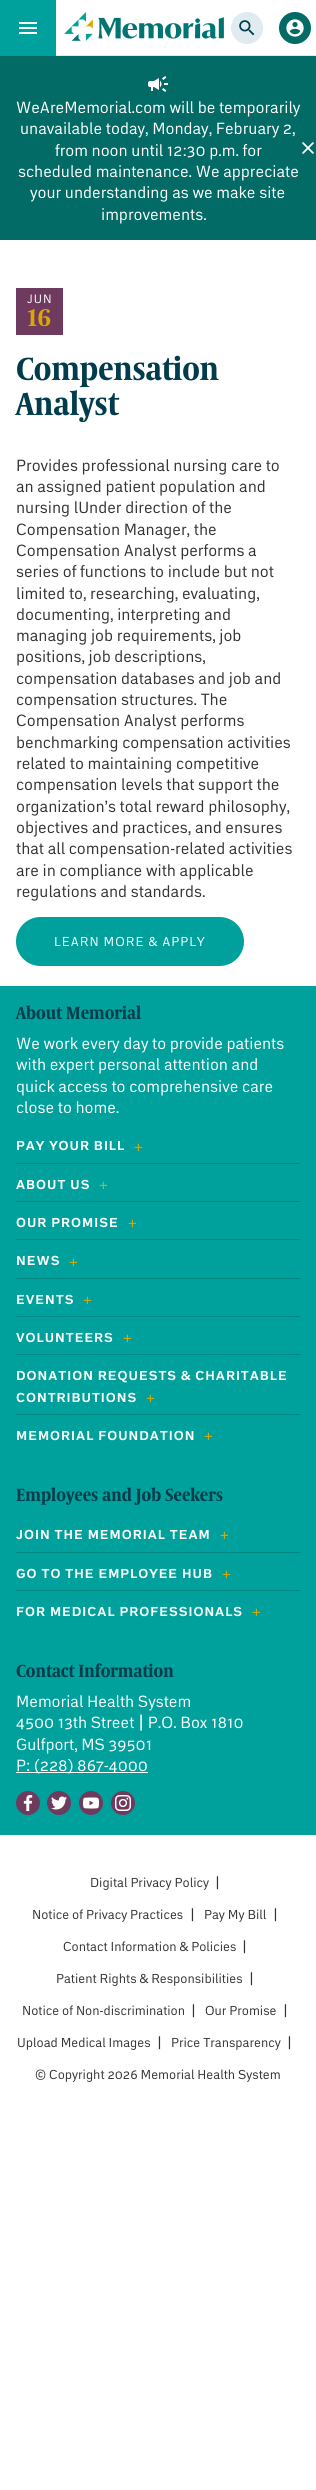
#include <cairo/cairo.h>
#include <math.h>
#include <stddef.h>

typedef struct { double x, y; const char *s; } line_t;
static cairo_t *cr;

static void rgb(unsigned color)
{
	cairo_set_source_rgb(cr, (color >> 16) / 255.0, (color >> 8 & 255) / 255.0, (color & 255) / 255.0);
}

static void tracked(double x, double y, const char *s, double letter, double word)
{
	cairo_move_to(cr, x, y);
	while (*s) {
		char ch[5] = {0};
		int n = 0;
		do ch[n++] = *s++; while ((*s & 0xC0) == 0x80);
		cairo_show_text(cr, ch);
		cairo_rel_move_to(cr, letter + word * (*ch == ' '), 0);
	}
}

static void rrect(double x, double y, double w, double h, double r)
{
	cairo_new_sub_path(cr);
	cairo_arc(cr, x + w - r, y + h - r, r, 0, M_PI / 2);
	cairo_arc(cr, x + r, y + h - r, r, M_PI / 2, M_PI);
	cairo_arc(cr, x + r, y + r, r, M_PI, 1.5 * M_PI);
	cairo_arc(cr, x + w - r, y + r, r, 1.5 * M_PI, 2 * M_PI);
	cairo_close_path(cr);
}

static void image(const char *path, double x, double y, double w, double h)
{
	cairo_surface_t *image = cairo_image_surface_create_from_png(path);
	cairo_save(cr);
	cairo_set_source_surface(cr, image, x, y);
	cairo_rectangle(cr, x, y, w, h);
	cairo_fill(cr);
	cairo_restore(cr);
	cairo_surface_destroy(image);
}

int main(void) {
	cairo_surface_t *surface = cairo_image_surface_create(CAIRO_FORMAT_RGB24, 316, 2490);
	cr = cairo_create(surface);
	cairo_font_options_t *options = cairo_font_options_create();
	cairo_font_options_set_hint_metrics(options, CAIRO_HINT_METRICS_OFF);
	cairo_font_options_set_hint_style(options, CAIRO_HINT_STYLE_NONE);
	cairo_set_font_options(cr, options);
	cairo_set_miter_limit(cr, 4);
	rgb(0xffffff);
	cairo_paint(cr);
	rgb(0xdfebf0);
	cairo_rectangle(cr, 56, 55, 260, 1);
	cairo_fill(cr);
	rgb(0x00a19c);
	cairo_rectangle(cr, 0, 0, 56, 56);
	cairo_fill(cr);
	image("img/1.png", 19, 22, 18, 12);
	image("img/2.png", 64, 12, 160, 29);
	rgb(0xdfebf0);
	cairo_arc(cr, 247, 28, 16, 0, 2 * M_PI);
	cairo_fill(cr);
	image("img/3.png", 239, 20, 16, 16);
	rgb(0x036b66);
	cairo_arc(cr, 295, 28, 16, 0, 2 * M_PI);
	cairo_fill(cr);
	image("img/4.png", 286, 19, 18, 18);
	cairo_rectangle(cr, 0, 56, 316, 184);
	cairo_fill(cr);
	image("img/5.png", 148, 76, 20, 16);
	image("img/6.png", 302, 142, 12, 12);
	rgb(0x6e3a5d);
	cairo_rectangle(cr, 16, 288, 47, 47);
	cairo_fill(cr);
	rgb(0x00a19c);
	rrect(16, 917, 228, 49, 24.5);
	cairo_fill(cr);
	cairo_rectangle(cr, 0, 986, 316, 849);
	cairo_fill(cr);
	rgb(0x028681);
	cairo_rectangle(cr, 16, 1163, 284, 1);
	cairo_fill(cr);
	image("img/7.png", 134, 1143, 9, 9);
	cairo_rectangle(cr, 16, 1201, 284, 1);
	cairo_fill(cr);
	image("img/7.png", 99, 1181, 9, 9);
	cairo_rectangle(cr, 16, 1239, 284, 1);
	cairo_fill(cr);
	image("img/7.png", 128, 1219, 9, 9);
	cairo_rectangle(cr, 16, 1278, 284, 1);
	cairo_fill(cr);
	image("img/7.png", 69, 1258, 9, 9);
	cairo_rectangle(cr, 16, 1316, 284, 1);
	cairo_fill(cr);
	image("img/7.png", 83, 1296, 9, 9);
	cairo_rectangle(cr, 16, 1354, 284, 1);
	cairo_fill(cr);
	image("img/7.png", 123, 1334, 9, 9);
	cairo_rectangle(cr, 16, 1414, 284, 1);
	cairo_fill(cr);
	image("img/7.png", 146, 1394, 9, 9);
	image("img/7.png", 204, 1432, 9, 9);
	cairo_rectangle(cr, 16, 1552, 284, 1);
	cairo_fill(cr);
	image("img/7.png", 220, 1531, 9, 9);
	cairo_rectangle(cr, 16, 1590, 284, 1);
	cairo_fill(cr);
	image("img/7.png", 222, 1570, 9, 9);
	image("img/7.png", 252, 1608, 9, 9);
	rgb(0xffffff);
	cairo_rectangle(cr, 16, 1772, 132, 1);
	cairo_fill(cr);
	rgb(0x6e3a5d);
	cairo_arc(cr, 28, 1803, 12, 0, 2 * M_PI);
	cairo_fill(cr);
	image("img/8.png", 23, 1795, 10, 16);
	cairo_arc(cr, 59, 1803, 12, 0, 2 * M_PI);
	cairo_fill(cr);
	image("img/9.png", 51, 1796, 16, 14);
	cairo_arc(cr, 91, 1803, 12, 0, 2 * M_PI);
	cairo_fill(cr);
	image("img/10.png", 83, 1797, 16, 12);
	cairo_arc(cr, 123, 1803, 12, 0, 2 * M_PI);
	cairo_fill(cr);
	image("img/11.png", 115, 1795, 16, 16);
	cairo_select_font_face(cr, "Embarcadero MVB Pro", CAIRO_FONT_SLANT_NORMAL, CAIRO_FONT_WEIGHT_NORMAL);
	cairo_set_font_size(cr, 16);
	rgb(0xffffff);
	{
		static const line_t items[] = {
			{16, 113, "WeAreMemorial.com will be temporarily"},
			{20, 134, "unavailable today, Monday, February 2,"},
			{55, 156, "from noon until 12:30 p.m. for"},
			{18, 177, "scheduled maintenance. We appreciate"},
			{30, 198, "your understanding as we make site"},
			{101, 220, "improvements."},
		};
		for (size_t i = 0; i < sizeof items / sizeof *items; i++) {
			cairo_move_to(cr, items[i].x, items[i].y);
			cairo_show_text(cr, items[i].s);
		}
	}
	cairo_set_font_size(cr, 12);
	tracked(27, 303, "JUN", 1, 0);
	cairo_select_font_face(cr, "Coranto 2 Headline", CAIRO_FONT_SLANT_NORMAL, CAIRO_FONT_WEIGHT_BOLD);
	cairo_set_font_size(cr, 24);
	rgb(0xdba800);
	cairo_move_to(cr, 27, 326);
	cairo_show_text(cr, "16");
	cairo_set_font_size(cr, 32);
	rgb(0x013c4d);
	cairo_move_to(cr, 16, 380);
	cairo_show_text(cr, "Compensation");
	cairo_move_to(cr, 16, 415);
	cairo_show_text(cr, "Analyst");
	cairo_select_font_face(cr, "Embarcadero MVB Pro", CAIRO_FONT_SLANT_NORMAL, CAIRO_FONT_WEIGHT_NORMAL);
	cairo_set_font_size(cr, 16);
	rgb(0x333333);
	{
		static const line_t items[] = {
			{16, 471, "Provides professional nursing care to"},
			{16, 492, "an assigned patient population and"},
			{16, 513, "nursing lUnder direction of the"},
			{16, 535, "Compensation Manager, the"},
			{16, 556, "Compensation Analyst performs a"},
			{16, 577, "series of functions to include but not"},
			{16, 599, "limited to, researching, evaluating,"},
			{16, 620, "documenting, interpreting and"},
			{16, 641, "managing job requirements, job"},
			{16, 662, "positions, job descriptions,"},
			{16, 684, "compensation databases and job and"},
			{16, 705, "compensation structures. The"},
			{16, 726, "Compensation Analyst performs"},
			{16, 748, "benchmarking compensation activities"},
			{16, 769, "related to maintaining competitive"},
			{16, 790, "compensation levels that support the"},
			{16, 812, "organization’s total reward philosophy,"},
			{16, 833, "objectives and practices, and ensures"},
			{16, 854, "that all compensation-related activities"},
			{16, 876, "are in compliance with applicable"},
			{16, 897, "regulations and standards."},
		};
		for (size_t i = 0; i < sizeof items / sizeof *items; i++) {
			cairo_move_to(cr, items[i].x, items[i].y);
			cairo_show_text(cr, items[i].s);
		}
	}
	cairo_set_font_size(cr, 12.8);
	rgb(0xffffff);
	tracked(54, 946, "LEARN MORE & APPLY", 1, 0);
	cairo_select_font_face(cr, "Coranto 2 Headline", CAIRO_FONT_SLANT_NORMAL, CAIRO_FONT_WEIGHT_BOLD);
	cairo_set_font_size(cr, 17.6);
	rgb(0x013c4d);
	cairo_move_to(cr, 16, 1019);
	cairo_show_text(cr, "About Memorial");
	cairo_select_font_face(cr, "Embarcadero MVB Pro", CAIRO_FONT_SLANT_NORMAL, CAIRO_FONT_WEIGHT_NORMAL);
	cairo_set_font_size(cr, 16);
	rgb(0xffffff);
	{
		static const line_t items[] = {
			{16, 1049, "We work every day to provide patients"},
			{16, 1070, "with expert personal attention and"},
			{16, 1092, "quick access to comprehensive care"},
			{16, 1113, "close to home."},
		};
		for (size_t i = 0; i < sizeof items / sizeof *items; i++) {
			cairo_move_to(cr, items[i].x, items[i].y);
			cairo_show_text(cr, items[i].s);
		}
	}
	cairo_select_font_face(cr, "Embarcadero MVB Pro", CAIRO_FONT_SLANT_NORMAL, CAIRO_FONT_WEIGHT_BOLD);
	cairo_set_font_size(cr, 12.8);
	{
		static const line_t items[] = {
			{16, 1150, "PAY YOUR BILL"},
			{16, 1189, "ABOUT US"},
			{16, 1227, "OUR PROMISE"},
			{16, 1265, "NEWS"},
			{16, 1304, "EVENTS"},
			{16, 1342, "VOLUNTEERS"},
			{16, 1380, "DONATION REQUESTS & CHARITABLE"},
			{16, 1402, "CONTRIBUTIONS"},
			{16, 1440, "MEMORIAL FOUNDATION"},
		};
		for (size_t i = 0; i < sizeof items / sizeof *items; i++) {
			tracked(items[i].x, items[i].y, items[i].s, 1, 0);
		}
	}
	cairo_select_font_face(cr, "Coranto 2 Headline", CAIRO_FONT_SLANT_NORMAL, CAIRO_FONT_WEIGHT_BOLD);
	cairo_set_font_size(cr, 17.6);
	rgb(0x013c4d);
	cairo_move_to(cr, 16, 1501);
	cairo_show_text(cr, "Employees and Job Seekers");
	cairo_select_font_face(cr, "Embarcadero MVB Pro", CAIRO_FONT_SLANT_NORMAL, CAIRO_FONT_WEIGHT_BOLD);
	cairo_set_font_size(cr, 12.8);
	rgb(0xffffff);
	{
		static const line_t items[] = {
			{16, 1539, "JOIN THE MEMORIAL TEAM"},
			{16, 1578, "GO TO THE EMPLOYEE HUB"},
			{16, 1616, "FOR MEDICAL PROFESSIONALS"},
		};
		for (size_t i = 0; i < sizeof items / sizeof *items; i++) {
			tracked(items[i].x, items[i].y, items[i].s, 1, 0);
		}
	}
	cairo_select_font_face(cr, "Coranto 2 Headline", CAIRO_FONT_SLANT_NORMAL, CAIRO_FONT_WEIGHT_BOLD);
	cairo_set_font_size(cr, 17.6);
	rgb(0x013c4d);
	cairo_move_to(cr, 16, 1677);
	cairo_show_text(cr, "Contact Information");
	cairo_select_font_face(cr, "Embarcadero MVB Pro", CAIRO_FONT_SLANT_NORMAL, CAIRO_FONT_WEIGHT_NORMAL);
	cairo_set_font_size(cr, 16);
	rgb(0xffffff);
	{
		static const line_t items[] = {
			{16, 1707, "Memorial Health System"},
			{16, 1728, "4500 13th Street | P.O. Box 1810"},
			{16, 1750, "Gulfport, MS 39501"},
			{16, 1771, "P: (228) 867-4000"},
		};
		for (size_t i = 0; i < sizeof items / sizeof *items; i++) {
			cairo_move_to(cr, items[i].x, items[i].y);
			cairo_show_text(cr, items[i].s);
		}
	}
	cairo_set_font_size(cr, 12.8);
	rgb(0x333333);
	{
		static const line_t items[] = {
			{90, 1887, "Digital Privacy Policy"},
			{215, 1887, "|"},
			{32, 1919, "Notice of Privacy Practices"},
			{190, 1919, "|"},
			{204, 1919, "Pay My Bill"},
			{273, 1919, "|"},
			{63, 1951, "Contact Information & Policies"},
			{242, 1951, "|"},
			{56, 1983, "Patient Rights & Responsibilities"},
			{249, 1983, "|"},
			{22, 2015, "Notice of Non-discrimination"},
			{191, 2015, "|"},
			{205, 2015, "Our Promise"},
			{283, 2015, "|"},
			{17, 2047, "Upload Medical Images"},
			{157, 2047, "|"},
			{171, 2047, "Price Transparency"},
			{287, 2047, "|"},
			{35, 2079, "© Copyright 2026 Memorial Health System"},
		};
		for (size_t i = 0; i < sizeof items / sizeof *items; i++) {
			cairo_move_to(cr, items[i].x, items[i].y);
			cairo_show_text(cr, items[i].s);
		}
	}
	cairo_surface_write_to_png(surface, "page.png");
	cairo_font_options_destroy(options);
	cairo_destroy(cr);
	cairo_surface_destroy(surface);
	return 0;
}
